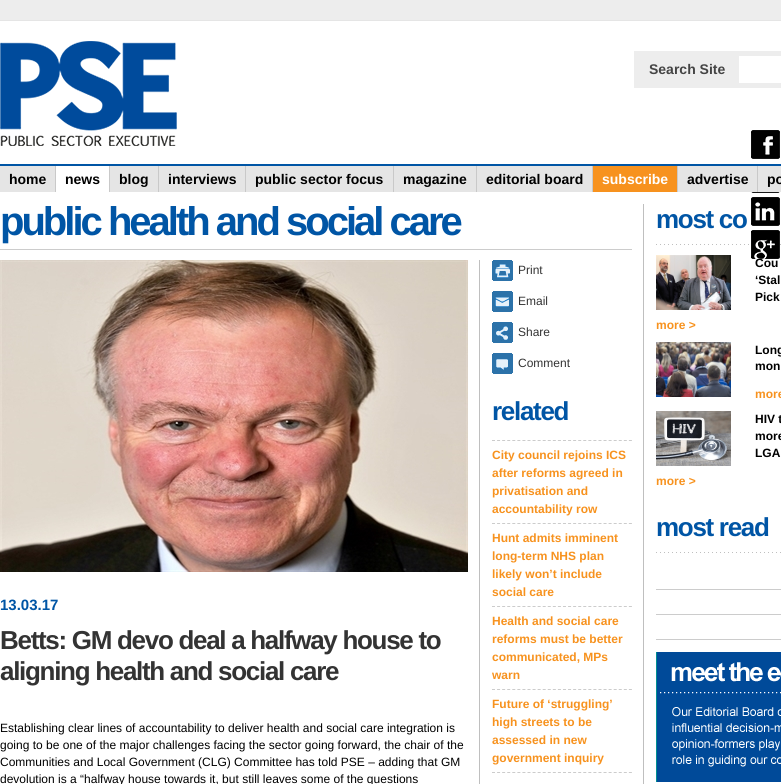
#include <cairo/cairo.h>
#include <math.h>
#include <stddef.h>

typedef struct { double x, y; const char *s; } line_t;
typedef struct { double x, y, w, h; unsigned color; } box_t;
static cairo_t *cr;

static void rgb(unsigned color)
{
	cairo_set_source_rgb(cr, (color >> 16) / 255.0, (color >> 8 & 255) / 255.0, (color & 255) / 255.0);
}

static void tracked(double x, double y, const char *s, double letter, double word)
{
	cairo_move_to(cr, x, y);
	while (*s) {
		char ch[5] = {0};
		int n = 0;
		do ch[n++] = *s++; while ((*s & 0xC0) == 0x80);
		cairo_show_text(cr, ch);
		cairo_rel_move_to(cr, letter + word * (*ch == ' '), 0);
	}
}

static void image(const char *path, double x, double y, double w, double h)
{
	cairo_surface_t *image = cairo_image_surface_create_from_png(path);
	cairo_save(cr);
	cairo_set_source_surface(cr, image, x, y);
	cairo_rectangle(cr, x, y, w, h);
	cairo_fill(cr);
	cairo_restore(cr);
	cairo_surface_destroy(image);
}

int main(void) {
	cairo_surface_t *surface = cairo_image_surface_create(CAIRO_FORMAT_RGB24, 781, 784);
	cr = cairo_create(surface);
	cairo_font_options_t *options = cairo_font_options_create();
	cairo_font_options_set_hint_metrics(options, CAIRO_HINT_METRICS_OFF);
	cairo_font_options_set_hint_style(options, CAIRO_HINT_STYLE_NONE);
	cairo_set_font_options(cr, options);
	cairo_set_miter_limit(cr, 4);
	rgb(0xffffff);
	cairo_paint(cr);
	rgb(0xededed);
	cairo_rectangle(cr, 0, 0, 781, 20);
	cairo_fill(cr);
	rgb(0xe5e5e5);
	cairo_rectangle(cr, 0, 20, 781, 1);
	cairo_fill(cr);
	image("img/1.png", 0, 41, 177, 105);
	rgb(0xededed);
	cairo_rectangle(cr, 634, 51, 147, 37);
	cairo_fill(cr);
	rgb(0xffffff);
	cairo_rectangle(cr, 739, 56, 42, 27);
	cairo_fill(cr);
	image("img/2.png", 751, 130, 29, 29);
	image("img/3.png", 751, 192, 29, 1);
	image("img/4.png", 751, 197, 29, 29);
	{
		static const box_t items[] = {
			{0, 166, 781, 26, 0xe5e5e5},
			{0, 164, 781, 2, 0x0055a5},
			{55, 166, 1, 26, 0xc9c9c9},
			{109, 166, 1, 26, 0xc9c9c9},
			{56, 166, 53, 26, 0xffffff},
			{158, 166, 1, 26, 0xc9c9c9},
			{245, 166, 1, 26, 0xc9c9c9},
			{393, 166, 1, 26, 0xc9c9c9},
			{476, 166, 1, 26, 0xc9c9c9},
			{592, 166, 1, 26, 0xc9c9c9},
			{677, 166, 1, 26, 0xc9c9c9},
			{593, 166, 84, 26, 0xf7921e},
			{757, 166, 1, 26, 0xc9c9c9},
			{643, 204, 1, 580, 0xbfbfbf},
			{0, 249, 632, 1, 0xcccccc},
			{479, 260, 1, 524, 0xbfbfbf},
		};
		for (size_t i = 0; i < sizeof items / sizeof *items; i++) {
			rgb(items[i].color);
			cairo_rectangle(cr, items[i].x, items[i].y, items[i].w, items[i].h);
			cairo_fill(cr);
		}
	}
	image("img/6.png", 0, 260, 468, 312);
	image("img/7.png", 492, 260, 21, 21);
	image("img/8.png", 492, 291, 21, 21);
	image("img/9.png", 492, 322, 21, 21);
	image("img/10.png", 492, 353, 21, 21);
	cairo_new_path(cr);
	cairo_move_to(cr, 492, 440.5);
	cairo_line_to(cr, 632, 440.5);
	rgb(0xcccccc);
	cairo_set_line_width(cr, 1);
	cairo_set_dash(cr, (double[]){3, 2.07}, 2, 0);
	cairo_stroke(cr);
	cairo_new_path(cr);
	cairo_move_to(cr, 492, 523.5);
	cairo_line_to(cr, 632, 523.5);
	cairo_stroke(cr);
	cairo_new_path(cr);
	cairo_move_to(cr, 492, 606.5);
	cairo_line_to(cr, 632, 606.5);
	cairo_stroke(cr);
	cairo_new_path(cr);
	cairo_move_to(cr, 492, 689.5);
	cairo_line_to(cr, 632, 689.5);
	cairo_stroke(cr);
	cairo_new_path(cr);
	cairo_move_to(cr, 492, 772.5);
	cairo_line_to(cr, 632, 772.5);
	cairo_stroke(cr);
	cairo_rectangle(cr, 656, 589, 125, 1);
	cairo_fill(cr);
	image("img/11.png", 656, 244, 125, 1);
	image("img/12.png", 656, 255, 75, 55);
	image("img/13.png", 656, 342, 75, 55);
	image("img/14.png", 656, 411, 75, 55);
	image("img/11.png", 656, 552, 125, 1);
	cairo_rectangle(cr, 656, 639, 125, 1);
	cairo_fill(cr);
	cairo_rectangle(cr, 656, 614, 125, 1);
	cairo_fill(cr);
	image("img/15.png", 656, 652, 125, 130);
	cairo_select_font_face(cr, "Liberation Sans", CAIRO_FONT_SLANT_NORMAL, CAIRO_FONT_WEIGHT_BOLD);
	cairo_set_font_size(cr, 14);
	rgb(0x444444);
	cairo_move_to(cr, 649, 74);
	cairo_show_text(cr, "Search Site");
	rgb(0x000000);
	{
		static const line_t items[] = {
			{9, 184, "home"},
			{65, 184, "news"},
			{119, 184, "blog"},
			{168, 184, "interviews"},
			{255, 184, "public sector focus"},
			{403, 184, "magazine"},
			{486, 184, "editorial board"},
		};
		for (size_t i = 0; i < sizeof items / sizeof *items; i++) {
			cairo_move_to(cr, items[i].x, items[i].y);
			cairo_show_text(cr, items[i].s);
		}
	}
	rgb(0xffffff);
	cairo_move_to(cr, 602, 184);
	cairo_show_text(cr, "subscribe");
	rgb(0x000000);
	cairo_move_to(cr, 687, 184);
	cairo_show_text(cr, "advertise");
	cairo_move_to(cr, 767, 184);
	cairo_show_text(cr, "po");
	cairo_set_font_size(cr, 40);
	rgb(0x0055a5);
	tracked(0, 235, "public health and social care", -3, 0);
	cairo_set_font_size(cr, 15);
	cairo_move_to(cr, 0, 610);
	cairo_show_text(cr, "13.03.17");
	cairo_set_font_size(cr, 26);
	rgb(0x333333);
	tracked(0, 649, "Betts: GM devo deal a halfway house to", -1.3, 0);
	tracked(0, 680, "aligning health and social care", -1.3, 0);
	cairo_select_font_face(cr, "Liberation Sans", CAIRO_FONT_SLANT_NORMAL, CAIRO_FONT_WEIGHT_NORMAL);
	cairo_set_font_size(cr, 12);
	rgb(0x000000);
	{
		static const line_t items[] = {
			{0, 732, "Establishing clear lines of accountability to deliver health and social care integration is"},
			{0, 749, "going to be one of the major challenges facing the sector going forward, the chair of the"},
			{0, 766, "Communities and Local Government (CLG) Committee has told PSE – adding that GM"},
			{0, 783, "devolution is a “halfway house towards it, but still leaves some of the questions"},
		};
		for (size_t i = 0; i < sizeof items / sizeof *items; i++) {
			cairo_move_to(cr, items[i].x, items[i].y);
			cairo_show_text(cr, items[i].s);
		}
	}
	rgb(0x333333);
	{
		static const line_t items[] = {
			{518, 274, "Print"},
			{518, 305, "Email"},
			{518, 336, "Share"},
			{518, 367, "Comment"},
		};
		for (size_t i = 0; i < sizeof items / sizeof *items; i++) {
			cairo_move_to(cr, items[i].x, items[i].y);
			cairo_show_text(cr, items[i].s);
		}
	}
	cairo_select_font_face(cr, "Liberation Sans", CAIRO_FONT_SLANT_NORMAL, CAIRO_FONT_WEIGHT_BOLD);
	cairo_set_font_size(cr, 26);
	rgb(0x0055a5);
	tracked(492, 420, "related", -1.3, 0);
	cairo_set_font_size(cr, 12);
	rgb(0xf7921e);
	{
		static const line_t items[] = {
			{492, 459, "City council rejoins ICS"},
			{492, 477, "after reforms agreed in"},
			{492, 495, "privatisation and"},
			{492, 513, "accountability row"},
			{492, 542, "Hunt admits imminent"},
			{492, 560, "long-term NHS plan"},
			{492, 578, "likely won’t include"},
			{492, 596, "social care"},
			{492, 625, "Health and social care"},
			{492, 643, "reforms must be better"},
			{492, 661, "communicated, MPs"},
			{492, 679, "warn"},
			{492, 708, "Future of ‘struggling’"},
			{492, 726, "high streets to be"},
			{492, 744, "assessed in new"},
			{492, 762, "government inquiry"},
		};
		for (size_t i = 0; i < sizeof items / sizeof *items; i++) {
			cairo_move_to(cr, items[i].x, items[i].y);
			cairo_show_text(cr, items[i].s);
		}
	}
	cairo_set_font_size(cr, 26);
	rgb(0x0055a5);
	tracked(656, 228, "most co", -1.3, 0);
	cairo_set_font_size(cr, 12);
	rgb(0x000000);
	cairo_move_to(cr, 755, 267);
	cairo_show_text(cr, "Cou");
	image("img/5.png", 751, 230, 29, 29);
	cairo_move_to(cr, 755, 284);
	cairo_show_text(cr, "‘Stal");
	cairo_move_to(cr, 755, 301);
	cairo_show_text(cr, "Pick");
	rgb(0xf7921e);
	cairo_move_to(cr, 656, 329);
	cairo_show_text(cr, "more >");
	rgb(0x000000);
	cairo_move_to(cr, 755, 354);
	cairo_show_text(cr, "Long");
	cairo_move_to(cr, 755, 370);
	cairo_show_text(cr, "mon");
	rgb(0xf7921e);
	cairo_move_to(cr, 755, 398);
	cairo_show_text(cr, "more");
	rgb(0x000000);
	{
		static const line_t items[] = {
			{755, 423, "HIV t"},
			{755, 440, "more"},
			{755, 457, "LGA"},
		};
		for (size_t i = 0; i < sizeof items / sizeof *items; i++) {
			cairo_move_to(cr, items[i].x, items[i].y);
			cairo_show_text(cr, items[i].s);
		}
	}
	rgb(0xf7921e);
	cairo_move_to(cr, 656, 485);
	cairo_show_text(cr, "more >");
	cairo_set_font_size(cr, 26);
	rgb(0x0055a5);
	tracked(656, 536, "most read", -1.3, 0);
	cairo_surface_write_to_png(surface, "page.png");
	cairo_font_options_destroy(options);
	cairo_destroy(cr);
	cairo_surface_destroy(surface);
	return 0;
}
